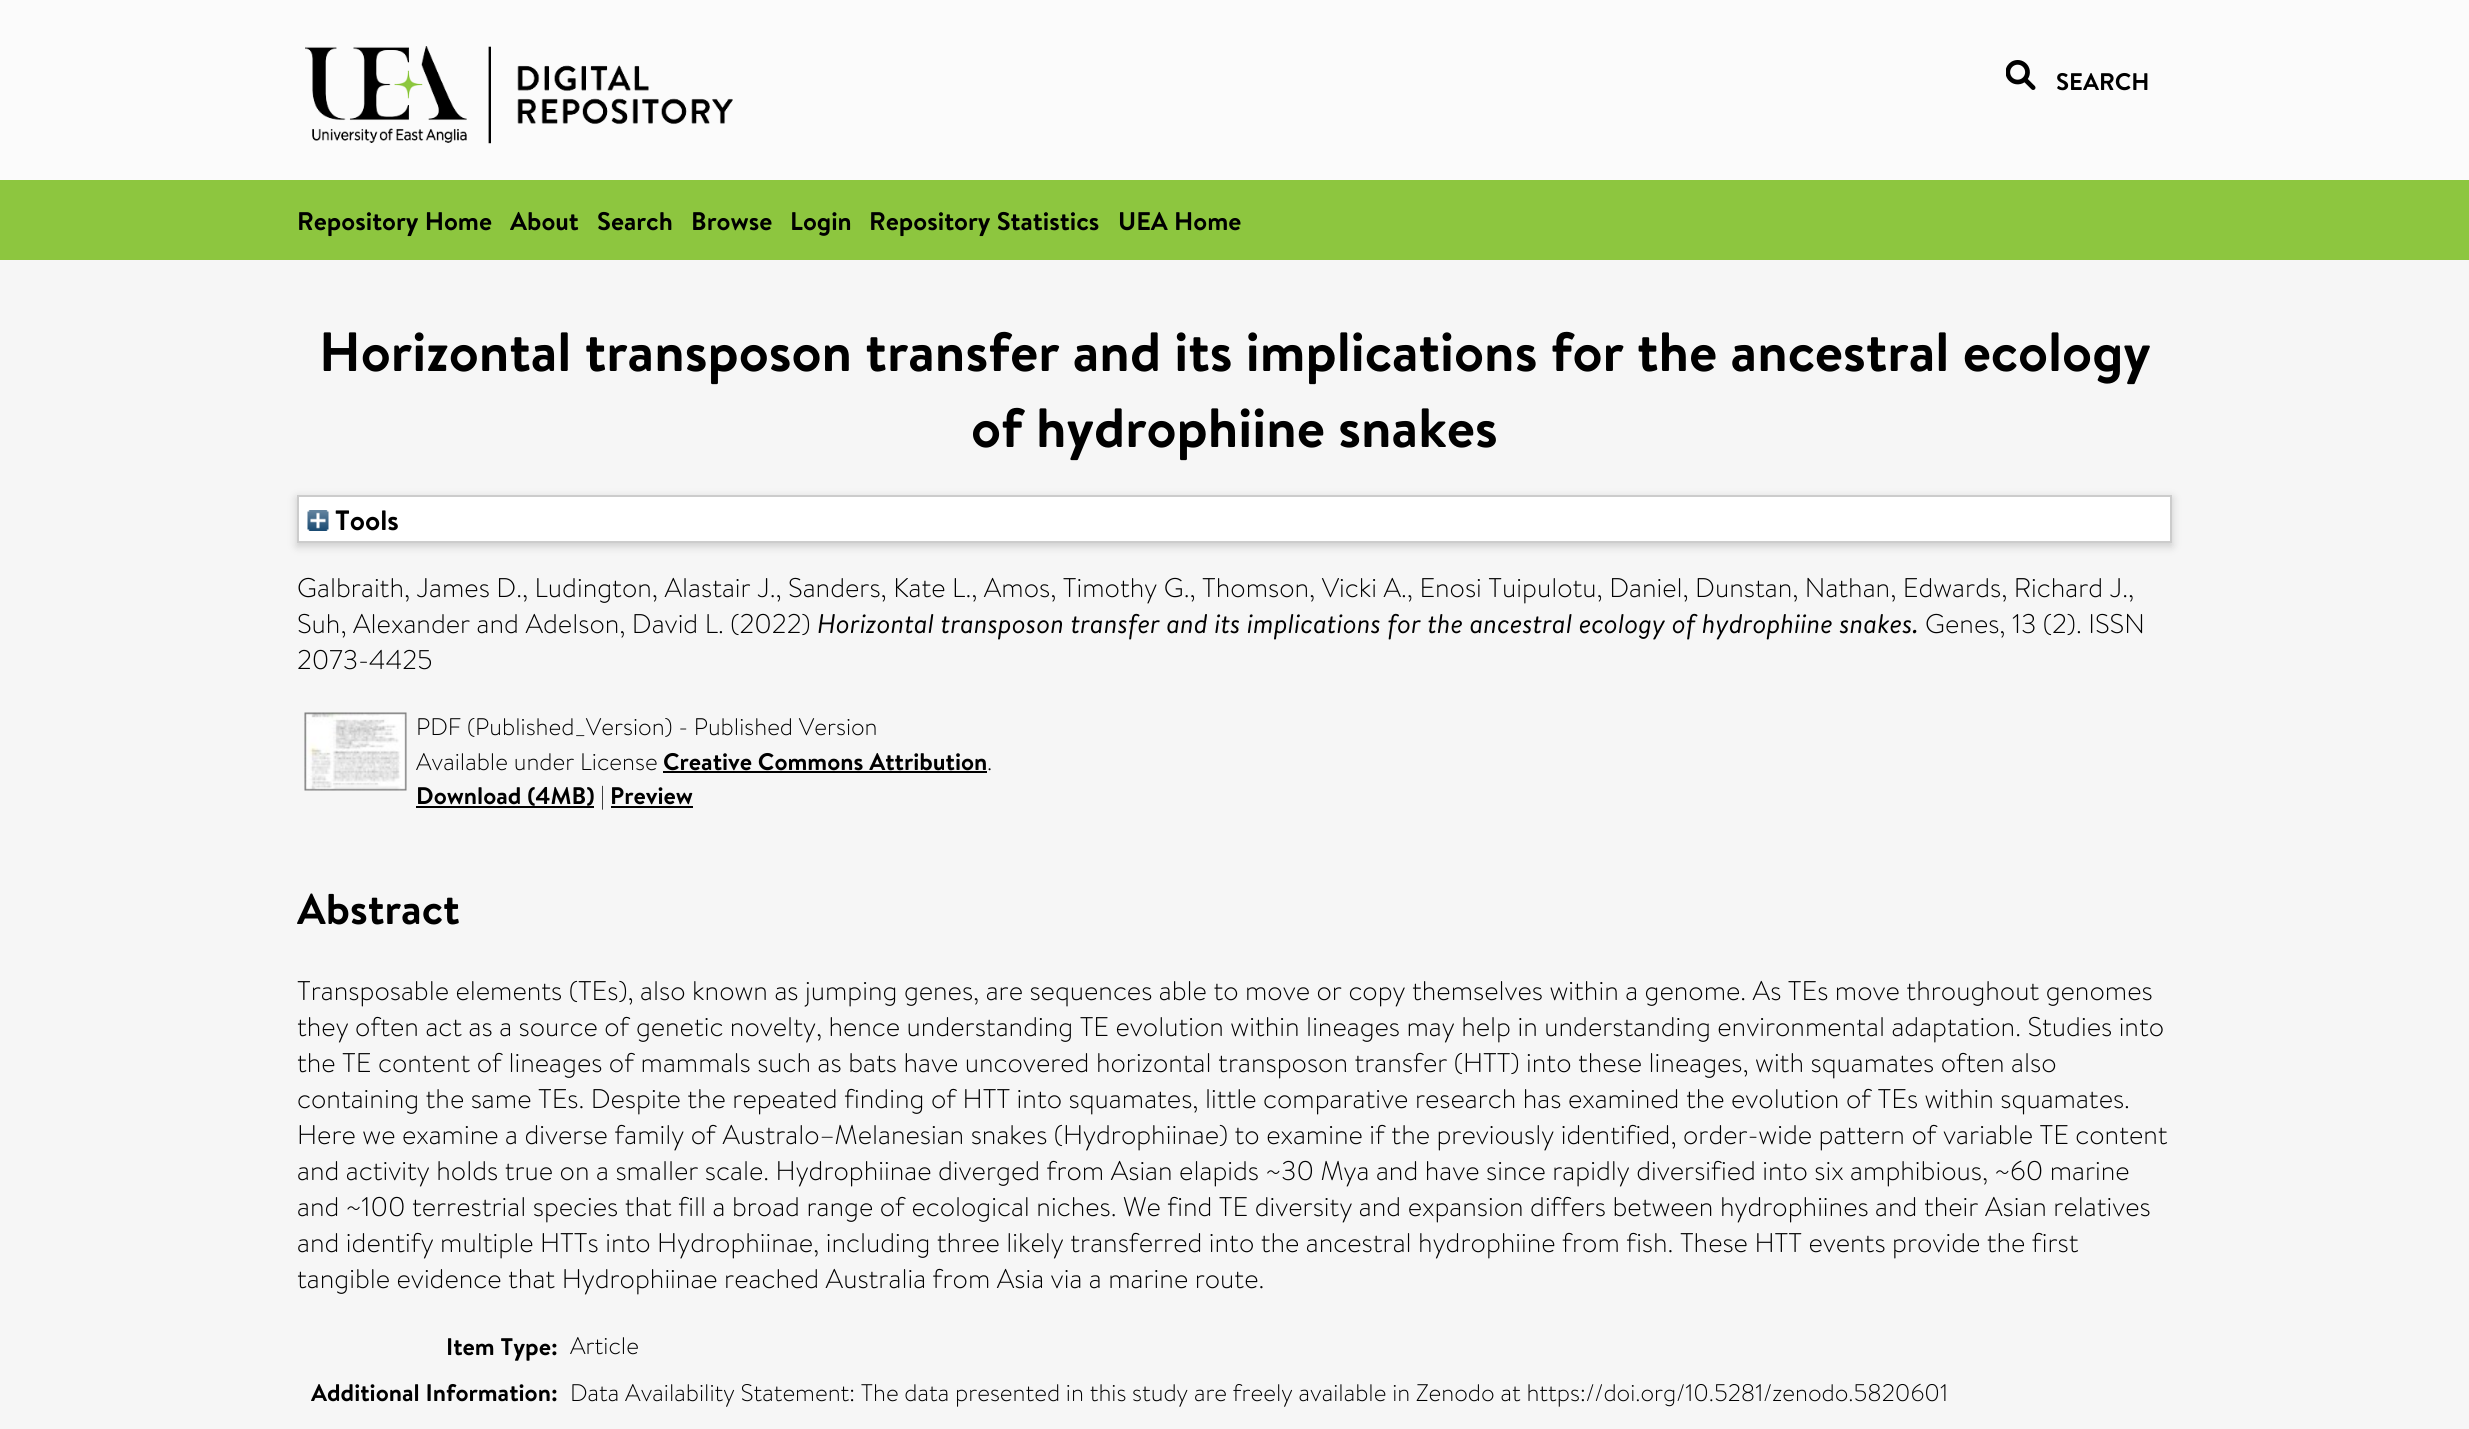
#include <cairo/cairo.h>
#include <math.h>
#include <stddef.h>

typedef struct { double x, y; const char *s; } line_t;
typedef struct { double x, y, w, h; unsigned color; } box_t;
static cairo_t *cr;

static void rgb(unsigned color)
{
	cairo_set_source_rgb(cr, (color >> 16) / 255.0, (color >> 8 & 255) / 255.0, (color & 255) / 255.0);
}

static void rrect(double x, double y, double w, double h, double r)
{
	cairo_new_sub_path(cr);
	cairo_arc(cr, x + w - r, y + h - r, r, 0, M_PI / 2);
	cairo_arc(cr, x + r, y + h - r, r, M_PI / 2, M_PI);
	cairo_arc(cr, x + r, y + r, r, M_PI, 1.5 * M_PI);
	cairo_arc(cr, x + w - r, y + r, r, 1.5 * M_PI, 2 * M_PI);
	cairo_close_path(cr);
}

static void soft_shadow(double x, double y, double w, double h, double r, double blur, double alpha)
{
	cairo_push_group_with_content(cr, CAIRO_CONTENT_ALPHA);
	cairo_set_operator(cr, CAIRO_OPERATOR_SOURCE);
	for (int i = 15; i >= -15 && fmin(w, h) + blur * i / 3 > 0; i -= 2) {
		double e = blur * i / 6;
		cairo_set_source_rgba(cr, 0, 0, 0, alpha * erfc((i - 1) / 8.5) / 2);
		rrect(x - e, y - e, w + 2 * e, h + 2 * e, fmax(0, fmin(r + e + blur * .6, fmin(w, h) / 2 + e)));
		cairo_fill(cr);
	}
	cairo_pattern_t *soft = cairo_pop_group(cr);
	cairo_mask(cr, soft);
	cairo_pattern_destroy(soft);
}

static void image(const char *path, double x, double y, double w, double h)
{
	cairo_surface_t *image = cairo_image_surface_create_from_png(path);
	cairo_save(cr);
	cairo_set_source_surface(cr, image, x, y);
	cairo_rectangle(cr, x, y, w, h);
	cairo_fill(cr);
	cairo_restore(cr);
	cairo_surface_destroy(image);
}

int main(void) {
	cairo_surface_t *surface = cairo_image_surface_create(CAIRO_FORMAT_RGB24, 2469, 1429);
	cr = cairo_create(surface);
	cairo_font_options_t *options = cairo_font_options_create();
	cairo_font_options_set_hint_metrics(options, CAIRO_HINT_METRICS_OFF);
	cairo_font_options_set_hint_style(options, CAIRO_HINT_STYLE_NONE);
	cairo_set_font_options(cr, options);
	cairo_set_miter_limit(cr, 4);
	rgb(0xf6f6f6);
	cairo_paint(cr);
	rgb(0xfbfbfb);
	cairo_rectangle(cr, 0, 0, 2469, 180);
	cairo_fill(cr);
	image("img/1.png", 305, 46, 428, 98);
	image("img/2.png", 2006, 60, 30, 30);
	rgb(0x8dc63f);
	cairo_rectangle(cr, 0, 180, 2469, 80);
	cairo_fill(cr);
	rgb(0x646464);
	soft_shadow(297, 498, 1875, 48, 0, 4.5, 0.3);
	rgb(0xffffff);
	cairo_rectangle(cr, 298, 496, 1873, 46);
	cairo_fill_preserve(cr);
	rgb(0xcccccc);
	cairo_stroke(cr);
	image("img/3.png", 307, 510, 22, 21);
	image("img/4.png", 304, 712, 103, 79);
	{
		static const box_t items[] = {
			{663, 771, 324, 2, 0x000000},
			{416, 806, 178, 2, 0x000000},
			{611, 806, 82, 2, 0x000000},
		};
		for (size_t i = 0; i < sizeof items / sizeof *items; i++) {
			rgb(items[i].color);
			cairo_rectangle(cr, items[i].x, items[i].y, items[i].w, items[i].h);
			cairo_fill(cr);
		}
	}
	cairo_select_font_face(cr, "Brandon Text", CAIRO_FONT_SLANT_NORMAL, CAIRO_FONT_WEIGHT_BOLD);
	cairo_set_font_size(cr, 24);
	cairo_move_to(cr, 2056, 90);
	cairo_show_text(cr, "SEARCH");
	cairo_set_font_size(cr, 25.5);
	{
		static const line_t items[] = {
			{297, 230, "Repository Home"},
			{510, 230, "About"},
			{597, 230, "Search"},
			{691, 230, "Browse"},
			{790, 230, "Login"},
			{869, 230, "Repository Statistics"},
			{1118, 230, "UEA Home"},
		};
		for (size_t i = 0; i < sizeof items / sizeof *items; i++) {
			cairo_move_to(cr, items[i].x, items[i].y);
			cairo_show_text(cr, items[i].s);
		}
	}
	cairo_set_font_size(cr, 55.2);
	cairo_move_to(cr, 319, 371);
	cairo_show_text(cr, "Horizontal transposon transfer and its implications for the ancestral ecology");
	cairo_move_to(cr, 971, 447);
	cairo_show_text(cr, "of hydrophiine snakes");
	cairo_set_font_size(cr, 28);
	cairo_move_to(cr, 335, 530);
	cairo_show_text(cr, "Tools");
	cairo_select_font_face(cr, "Brandon Text Light", CAIRO_FONT_SLANT_NORMAL, CAIRO_FONT_WEIGHT_NORMAL);
	cairo_set_font_size(cr, 27);
	cairo_move_to(cr, 297, 597);
	cairo_show_text(cr, "Galbraith, James D., Ludington, Alastair J., Sanders, Kate L., Amos, Timothy G., Thomson, Vicki A., Enosi Tuipulotu, Daniel, Dunstan, Nathan, Edwards, Richard J.,");
	cairo_move_to(cr, 297, 633);
	cairo_show_text(cr, "Suh, Alexander and Adelson, David L. (2022)");
	cairo_select_font_face(cr, "Brandon Text", CAIRO_FONT_SLANT_ITALIC, CAIRO_FONT_WEIGHT_NORMAL);
	cairo_move_to(cr, 817, 633);
	cairo_show_text(cr, "Horizontal transposon transfer and its implications for the ancestral ecology of hydrophiine snakes.");
	cairo_select_font_face(cr, "Brandon Text Light", CAIRO_FONT_SLANT_NORMAL, CAIRO_FONT_WEIGHT_NORMAL);
	cairo_move_to(cr, 1925, 633);
	cairo_show_text(cr, "Genes, 13 (2). ISSN");
	cairo_move_to(cr, 297, 669);
	cairo_show_text(cr, "2073-4425");
	cairo_set_font_size(cr, 24);
	cairo_move_to(cr, 416, 735);
	cairo_show_text(cr, "PDF (Published_Version) - Published Version");
	cairo_move_to(cr, 416, 770);
	cairo_show_text(cr, "Available under License");
	cairo_select_font_face(cr, "Brandon Text", CAIRO_FONT_SLANT_NORMAL, CAIRO_FONT_WEIGHT_BOLD);
	cairo_move_to(cr, 663, 770);
	cairo_show_text(cr, "Creative Commons Attribution");
	cairo_select_font_face(cr, "Brandon Text Light", CAIRO_FONT_SLANT_NORMAL, CAIRO_FONT_WEIGHT_NORMAL);
	cairo_move_to(cr, 987, 770);
	cairo_show_text(cr, ".");
	cairo_select_font_face(cr, "Brandon Text", CAIRO_FONT_SLANT_NORMAL, CAIRO_FONT_WEIGHT_BOLD);
	cairo_move_to(cr, 416, 804);
	cairo_show_text(cr, "Download (4MB)");
	cairo_select_font_face(cr, "Brandon Text Light", CAIRO_FONT_SLANT_NORMAL, CAIRO_FONT_WEIGHT_NORMAL);
	cairo_move_to(cr, 600, 804);
	cairo_show_text(cr, "|");
	cairo_select_font_face(cr, "Brandon Text", CAIRO_FONT_SLANT_NORMAL, CAIRO_FONT_WEIGHT_BOLD);
	cairo_move_to(cr, 610, 804);
	cairo_show_text(cr, "Preview");
	cairo_set_font_size(cr, 43);
	cairo_move_to(cr, 297, 924);
	cairo_show_text(cr, "Abstract");
	cairo_select_font_face(cr, "Brandon Text Light", CAIRO_FONT_SLANT_NORMAL, CAIRO_FONT_WEIGHT_NORMAL);
	cairo_set_font_size(cr, 27);
	{
		static const line_t items[] = {
			{297, 1000, "Transposable elements (TEs), also known as jumping genes, are sequences able to move or copy themselves within a genome. As TEs move throughout genomes"},
			{297, 1036, "they often act as a source of genetic novelty, hence understanding TE evolution within lineages may help in understanding environmental adaptation. Studies into"},
			{297, 1072, "the TE content of lineages of mammals such as bats have uncovered horizontal transposon transfer (HTT) into these lineages, with squamates often also"},
			{297, 1108, "containing the same TEs. Despite the repeated finding of HTT into squamates, little comparative research has examined the evolution of TEs within squamates."},
			{297, 1144, "Here we examine a diverse family of Australo–Melanesian snakes (Hydrophiinae) to examine if the previously identified, order-wide pattern of variable TE content"},
			{297, 1180, "and activity holds true on a smaller scale. Hydrophiinae diverged from Asian elapids ~30 Mya and have since rapidly diversified into six amphibious, ~60 marine"},
			{297, 1216, "and ~100 terrestrial species that fill a broad range of ecological niches. We find TE diversity and expansion differs between hydrophiines and their Asian relatives"},
			{297, 1252, "and identify multiple HTTs into Hydrophiinae, including three likely transferred into the ancestral hydrophiine from fish. These HTT events provide the first"},
			{297, 1288, "tangible evidence that Hydrophiinae reached Australia from Asia via a marine route."},
		};
		for (size_t i = 0; i < sizeof items / sizeof *items; i++) {
			cairo_move_to(cr, items[i].x, items[i].y);
			cairo_show_text(cr, items[i].s);
		}
	}
	cairo_select_font_face(cr, "Brandon Text", CAIRO_FONT_SLANT_NORMAL, CAIRO_FONT_WEIGHT_BOLD);
	cairo_set_font_size(cr, 24);
	cairo_move_to(cr, 446, 1355);
	cairo_show_text(cr, "Item Type:");
	cairo_select_font_face(cr, "Brandon Text Light", CAIRO_FONT_SLANT_NORMAL, CAIRO_FONT_WEIGHT_NORMAL);
	cairo_move_to(cr, 570, 1354);
	cairo_show_text(cr, "Article");
	cairo_select_font_face(cr, "Brandon Text", CAIRO_FONT_SLANT_NORMAL, CAIRO_FONT_WEIGHT_BOLD);
	cairo_move_to(cr, 311, 1401);
	cairo_show_text(cr, "Additional Information:");
	cairo_select_font_face(cr, "Brandon Text Light", CAIRO_FONT_SLANT_NORMAL, CAIRO_FONT_WEIGHT_NORMAL);
	cairo_move_to(cr, 570, 1401);
	cairo_show_text(cr, "Data Availability Statement: The data presented in this study are freely available in Zenodo at https://doi.org/10.5281/zenodo.5820601");
	cairo_surface_write_to_png(surface, "page.png");
	cairo_font_options_destroy(options);
	cairo_destroy(cr);
	cairo_surface_destroy(surface);
	return 0;
}
